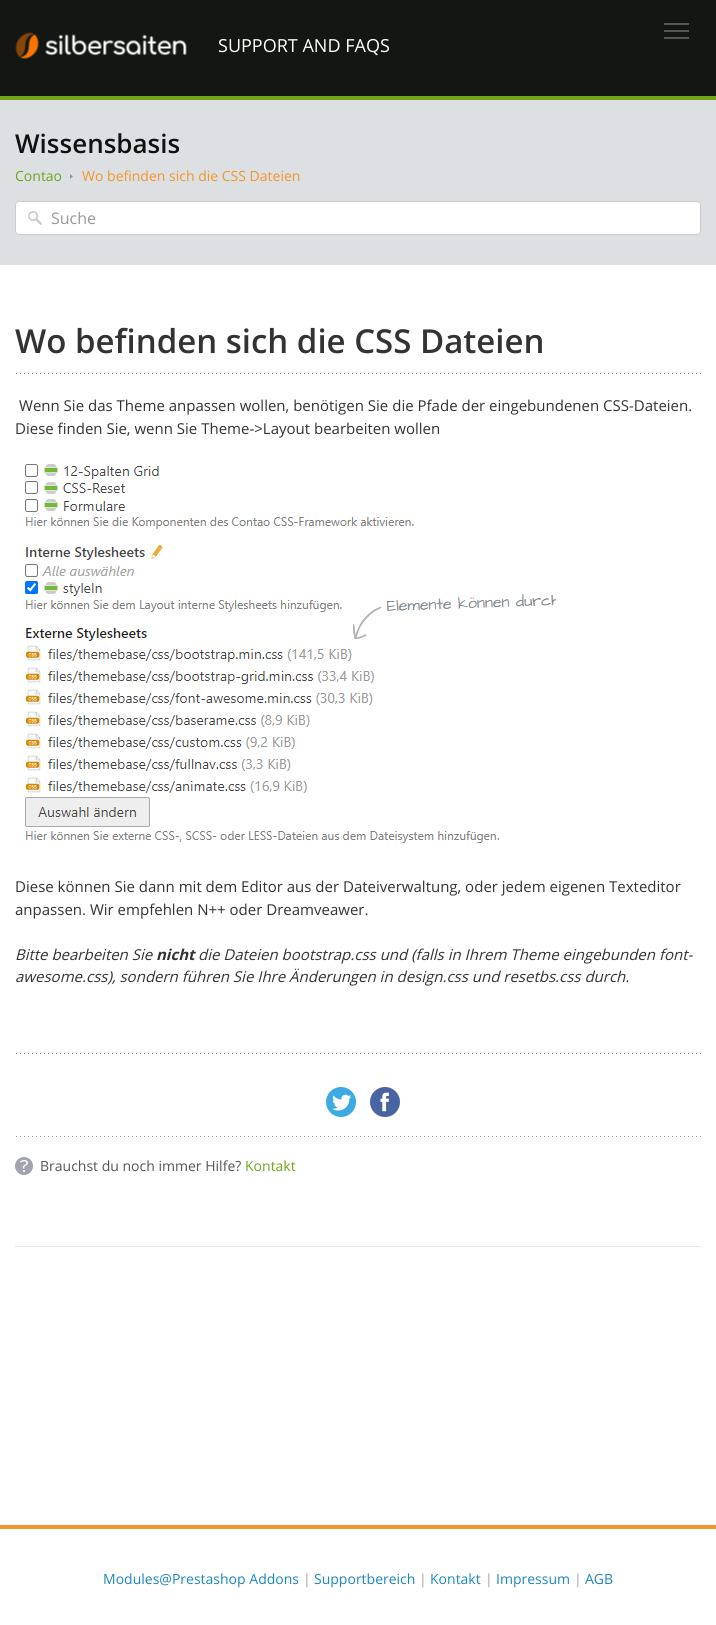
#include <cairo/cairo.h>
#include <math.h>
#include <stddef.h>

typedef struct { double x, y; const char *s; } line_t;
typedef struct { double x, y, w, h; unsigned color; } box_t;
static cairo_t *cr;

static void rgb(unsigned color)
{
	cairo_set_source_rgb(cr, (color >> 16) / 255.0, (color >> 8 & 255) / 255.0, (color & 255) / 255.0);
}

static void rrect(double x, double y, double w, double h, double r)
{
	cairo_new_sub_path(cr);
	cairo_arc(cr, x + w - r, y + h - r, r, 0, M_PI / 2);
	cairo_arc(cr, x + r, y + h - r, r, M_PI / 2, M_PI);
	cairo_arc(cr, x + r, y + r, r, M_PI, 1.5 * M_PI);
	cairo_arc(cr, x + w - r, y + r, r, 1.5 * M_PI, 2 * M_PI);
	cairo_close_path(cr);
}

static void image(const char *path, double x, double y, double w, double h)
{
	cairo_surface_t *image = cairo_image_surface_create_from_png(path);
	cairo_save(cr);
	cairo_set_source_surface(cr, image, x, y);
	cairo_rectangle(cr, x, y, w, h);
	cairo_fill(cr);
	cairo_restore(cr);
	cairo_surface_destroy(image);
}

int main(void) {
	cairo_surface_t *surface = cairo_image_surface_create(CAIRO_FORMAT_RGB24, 716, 1625);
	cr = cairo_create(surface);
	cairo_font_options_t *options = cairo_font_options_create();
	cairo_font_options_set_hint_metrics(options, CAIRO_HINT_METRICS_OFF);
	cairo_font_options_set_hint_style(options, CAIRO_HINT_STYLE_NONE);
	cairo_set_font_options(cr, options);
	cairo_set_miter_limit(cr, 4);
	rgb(0xffffff);
	cairo_paint(cr);
	{
		static const box_t items[] = {
			{0, 0, 716, 96, 0x141613},
			{0, 96, 716, 4, 0x6fa519},
			{664, 23, 25, 2, 0x555555},
			{664, 30, 25, 2, 0x555555},
			{664, 37, 25, 2, 0x555555},
		};
		for (size_t i = 0; i < sizeof items / sizeof *items; i++) {
			rgb(items[i].color);
			cairo_rectangle(cr, items[i].x, items[i].y, items[i].w, items[i].h);
			cairo_fill(cr);
		}
	}
	image("img/1.png", 15, 32, 172, 27);
	rgb(0xdce0e3);
	cairo_rectangle(cr, 0, 100, 716, 165);
	cairo_fill(cr);
	image("img/2.png", 70, 174, 3, 5);
	rgb(0xffffff);
	rrect(15, 201, 686, 34, 4);
	cairo_fill(cr);
	image("img/3.png", 28, 211, 14, 14);
	rrect(15.5, 201.5, 685, 33, 3.5);
	cairo_set_source_rgba(cr, 0, 0, 0, 0.2);
	cairo_set_line_width(cr, 1);
	cairo_stroke(cr);
	rgb(0xe5e5e5);
	cairo_rectangle(cr, 15, 1246, 686, 1);
	cairo_fill(cr);
	image("img/4.png", 16, 373, 685, 1);
	image("img/5.png", 25, 464, 531, 379);
	image("img/4.png", 16, 1053, 685, 1);
	image("img/4.png", 16, 1136, 685, 1);
	image("img/6.png", 326, 1087, 30, 30);
	image("img/7.png", 370, 1087, 30, 30);
	image("img/8.png", 15, 1157, 18, 18);
	rgb(0xf49529);
	cairo_rectangle(cr, 0, 1525, 716, 4);
	cairo_fill(cr);
	cairo_select_font_face(cr, "Open Sans", CAIRO_FONT_SLANT_NORMAL, CAIRO_FONT_WEIGHT_NORMAL);
	cairo_set_font_size(cr, 18);
	rgb(0xffffff);
	cairo_move_to(cr, 218, 52);
	cairo_show_text(cr, "SUPPORT AND FAQS");
	cairo_select_font_face(cr, "Open Sans SemiBold", CAIRO_FONT_SLANT_NORMAL, CAIRO_FONT_WEIGHT_NORMAL);
	cairo_set_font_size(cr, 26);
	rgb(0x111111);
	cairo_move_to(cr, 15, 153);
	cairo_show_text(cr, "Wissensbasis");
	cairo_select_font_face(cr, "Open Sans", CAIRO_FONT_SLANT_NORMAL, CAIRO_FONT_WEIGHT_NORMAL);
	cairo_set_font_size(cr, 14);
	rgb(0x6fa519);
	cairo_move_to(cr, 15, 181);
	cairo_show_text(cr, "Contao");
	rgb(0xf49529);
	cairo_move_to(cr, 82, 181);
	cairo_show_text(cr, "Wo befinden sich die CSS Dateien");
	cairo_set_font_size(cr, 16);
	rgb(0x999999);
	cairo_move_to(cr, 51, 224);
	cairo_show_text(cr, "Suche");
	cairo_select_font_face(cr, "Open Sans SemiBold", CAIRO_FONT_SLANT_NORMAL, CAIRO_FONT_WEIGHT_NORMAL);
	cairo_set_font_size(cr, 33);
	rgb(0x333333);
	cairo_move_to(cr, 15, 353);
	cairo_show_text(cr, "Wo befinden sich die CSS Dateien");
	cairo_select_font_face(cr, "Open Sans", CAIRO_FONT_SLANT_NORMAL, CAIRO_FONT_WEIGHT_NORMAL);
	cairo_set_font_size(cr, 15);
	{
		static const line_t items[] = {
			{19, 411, "Wenn Sie das Theme anpassen wollen, benötigen Sie die Pfade der eingebundenen CSS-Dateien."},
			{15, 434, "Diese finden Sie, wenn Sie Theme->Layout bearbeiten wollen"},
			{15, 892, "Diese können Sie dann mit dem Editor aus der Dateiverwaltung, oder jedem eigenen Texteditor"},
			{15, 915, "anpassen. Wir empfehlen N++ oder Dreamveawer."},
		};
		for (size_t i = 0; i < sizeof items / sizeof *items; i++) {
			cairo_move_to(cr, items[i].x, items[i].y);
			cairo_show_text(cr, items[i].s);
		}
	}
	cairo_select_font_face(cr, "Open Sans", CAIRO_FONT_SLANT_ITALIC, CAIRO_FONT_WEIGHT_NORMAL);
	cairo_move_to(cr, 15, 960);
	cairo_show_text(cr, "Bitte bearbeiten Sie");
	cairo_select_font_face(cr, "Open Sans", CAIRO_FONT_SLANT_ITALIC, CAIRO_FONT_WEIGHT_BOLD);
	cairo_move_to(cr, 156, 960);
	cairo_show_text(cr, "nicht");
	cairo_select_font_face(cr, "Open Sans", CAIRO_FONT_SLANT_ITALIC, CAIRO_FONT_WEIGHT_NORMAL);
	cairo_move_to(cr, 198, 960);
	cairo_show_text(cr, "die Dateien bootstrap.css und (falls in Ihrem Theme eingebunden font-");
	cairo_move_to(cr, 15, 982);
	cairo_show_text(cr, "awesome.css), sondern führen Sie Ihre Änderungen in design.css und resetbs.css durch.");
	cairo_select_font_face(cr, "Open Sans", CAIRO_FONT_SLANT_NORMAL, CAIRO_FONT_WEIGHT_NORMAL);
	cairo_set_font_size(cr, 14);
	rgb(0x555555);
	cairo_move_to(cr, 40, 1171);
	cairo_show_text(cr, "Brauchst du noch immer Hilfe?");
	rgb(0x6fa519);
	cairo_move_to(cr, 245, 1171);
	cairo_show_text(cr, "Kontakt");
	rgb(0x1b87bd);
	cairo_move_to(cr, 103, 1584);
	cairo_show_text(cr, "Modules@Prestashop Addons");
	rgb(0xa3a3a3);
	cairo_move_to(cr, 303, 1584);
	cairo_show_text(cr, "|");
	rgb(0x1b87bd);
	cairo_move_to(cr, 314, 1584);
	cairo_show_text(cr, "Supportbereich");
	rgb(0xa3a3a3);
	cairo_move_to(cr, 419, 1584);
	cairo_show_text(cr, "|");
	rgb(0x1b87bd);
	cairo_move_to(cr, 430, 1584);
	cairo_show_text(cr, "Kontakt");
	rgb(0xa3a3a3);
	cairo_move_to(cr, 485, 1584);
	cairo_show_text(cr, "|");
	rgb(0x1b87bd);
	cairo_move_to(cr, 496, 1584);
	cairo_show_text(cr, "Impressum");
	rgb(0xa3a3a3);
	cairo_move_to(cr, 574, 1584);
	cairo_show_text(cr, "|");
	rgb(0x1b87bd);
	cairo_move_to(cr, 585, 1584);
	cairo_show_text(cr, "AGB");
	cairo_surface_write_to_png(surface, "page.png");
	cairo_font_options_destroy(options);
	cairo_destroy(cr);
	cairo_surface_destroy(surface);
	return 0;
}
